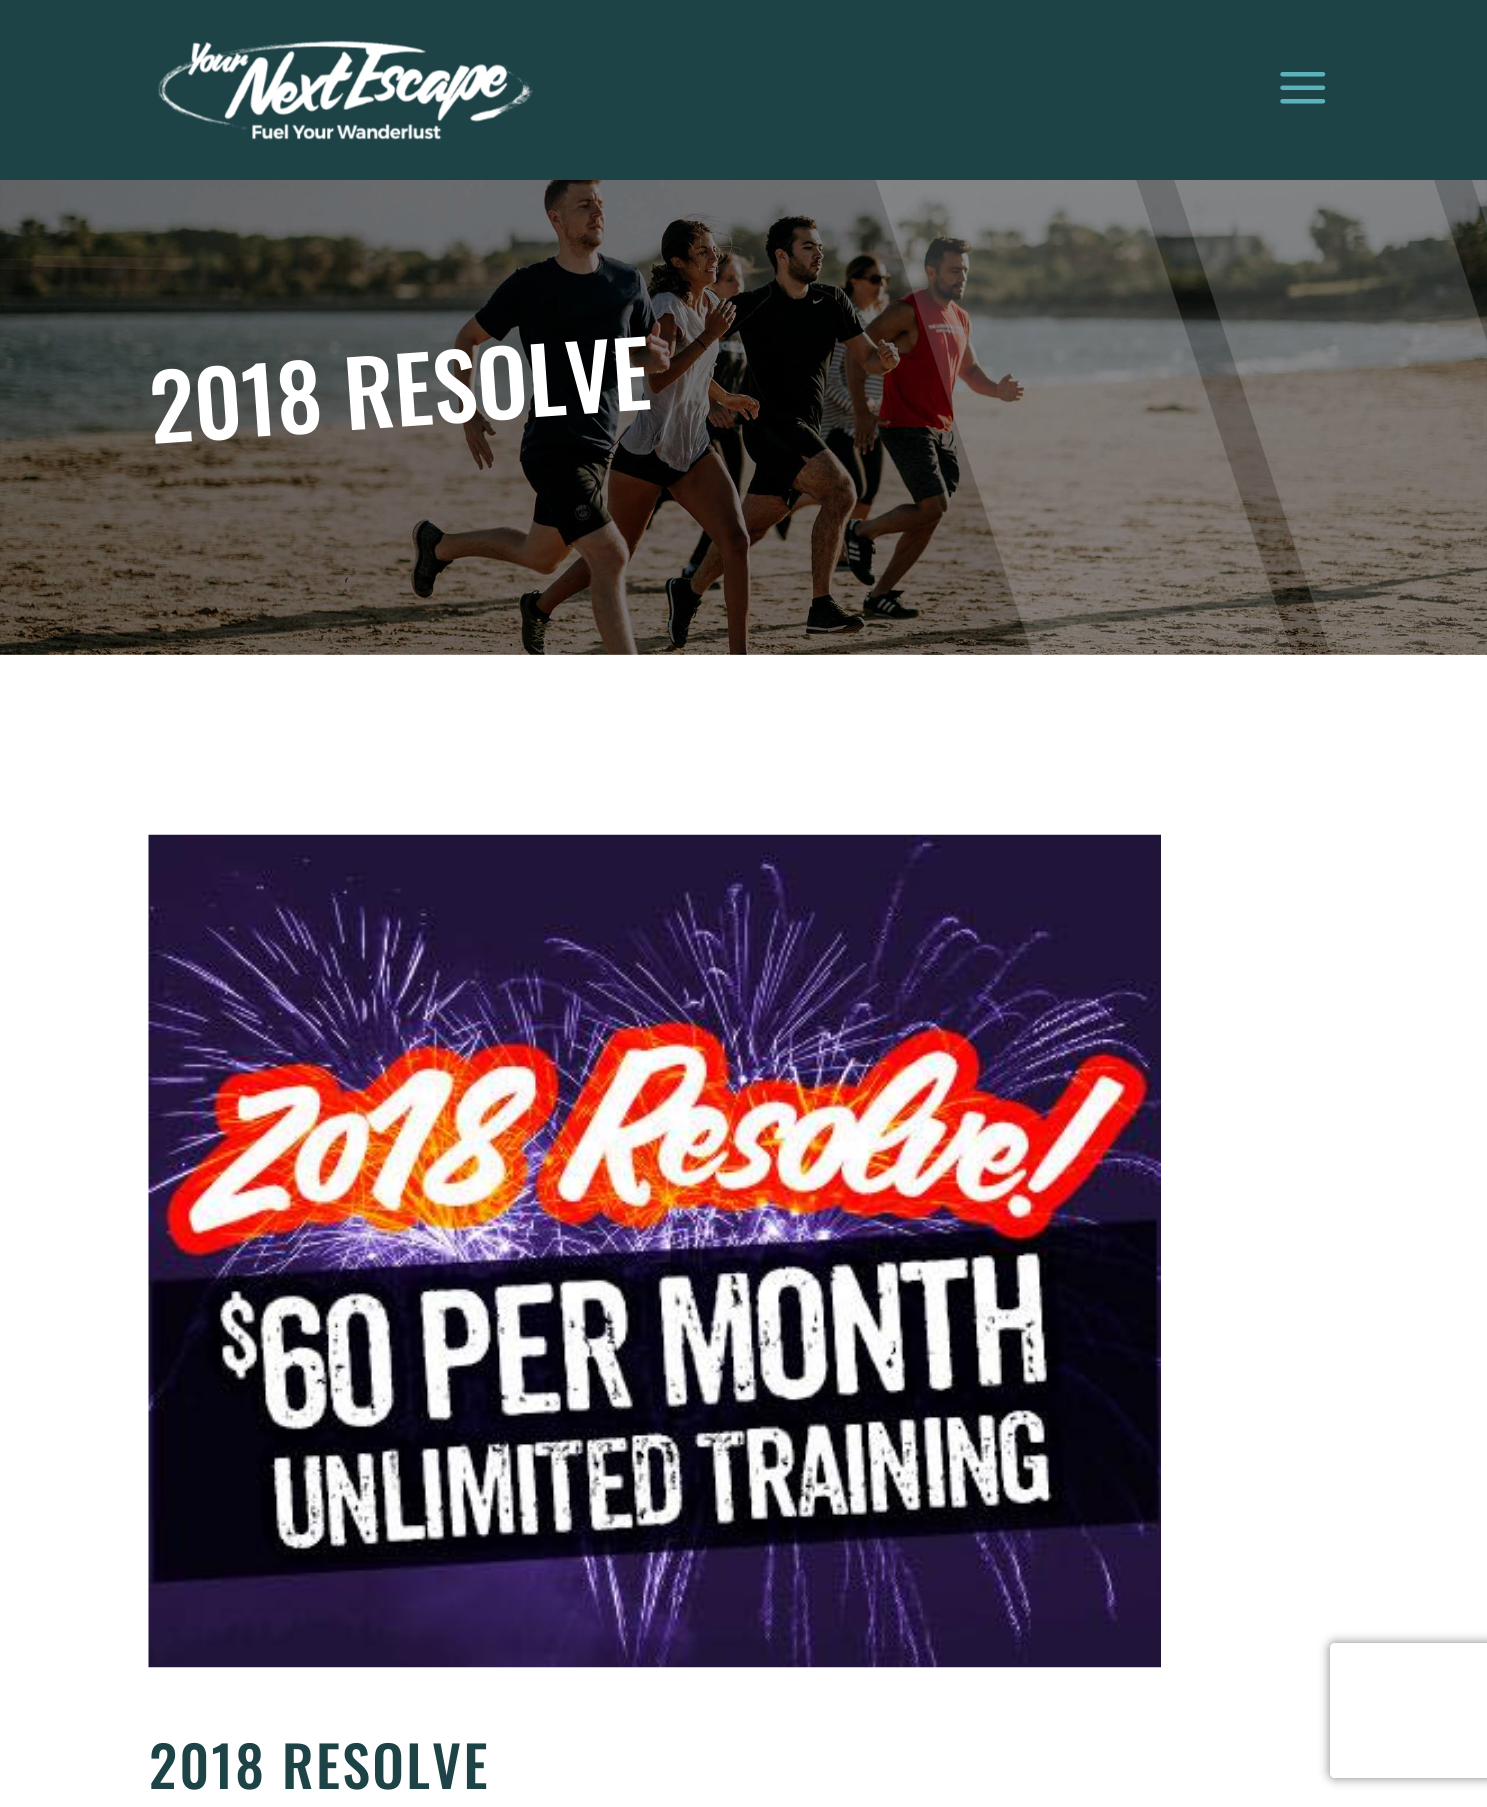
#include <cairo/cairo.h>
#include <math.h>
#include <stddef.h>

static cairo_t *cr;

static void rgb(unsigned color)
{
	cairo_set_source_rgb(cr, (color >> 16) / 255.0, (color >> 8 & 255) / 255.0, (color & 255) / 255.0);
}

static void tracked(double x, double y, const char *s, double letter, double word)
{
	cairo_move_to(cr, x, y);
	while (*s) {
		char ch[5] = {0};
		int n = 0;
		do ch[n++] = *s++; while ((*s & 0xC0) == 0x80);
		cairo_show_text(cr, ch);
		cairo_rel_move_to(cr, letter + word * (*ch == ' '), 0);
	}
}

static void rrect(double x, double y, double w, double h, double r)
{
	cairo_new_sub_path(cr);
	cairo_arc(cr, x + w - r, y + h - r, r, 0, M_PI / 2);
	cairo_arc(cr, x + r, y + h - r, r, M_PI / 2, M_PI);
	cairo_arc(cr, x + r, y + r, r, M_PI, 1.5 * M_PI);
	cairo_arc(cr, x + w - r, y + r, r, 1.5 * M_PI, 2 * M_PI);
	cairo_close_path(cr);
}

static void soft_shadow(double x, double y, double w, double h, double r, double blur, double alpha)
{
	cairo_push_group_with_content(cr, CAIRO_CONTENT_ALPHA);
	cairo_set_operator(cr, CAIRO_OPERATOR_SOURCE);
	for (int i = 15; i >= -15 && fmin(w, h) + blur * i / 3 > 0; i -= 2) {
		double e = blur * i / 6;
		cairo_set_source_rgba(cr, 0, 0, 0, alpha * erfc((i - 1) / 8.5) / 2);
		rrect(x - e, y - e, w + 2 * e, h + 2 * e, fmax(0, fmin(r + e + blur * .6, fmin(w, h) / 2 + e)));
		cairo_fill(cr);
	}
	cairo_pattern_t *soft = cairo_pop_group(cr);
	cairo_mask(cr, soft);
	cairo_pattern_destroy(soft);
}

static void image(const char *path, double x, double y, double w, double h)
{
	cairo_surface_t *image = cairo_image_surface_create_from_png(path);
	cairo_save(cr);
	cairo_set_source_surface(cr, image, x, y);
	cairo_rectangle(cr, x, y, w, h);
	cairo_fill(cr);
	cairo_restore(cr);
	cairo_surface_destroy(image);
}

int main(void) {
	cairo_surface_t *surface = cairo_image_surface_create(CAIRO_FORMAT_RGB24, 1487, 1807);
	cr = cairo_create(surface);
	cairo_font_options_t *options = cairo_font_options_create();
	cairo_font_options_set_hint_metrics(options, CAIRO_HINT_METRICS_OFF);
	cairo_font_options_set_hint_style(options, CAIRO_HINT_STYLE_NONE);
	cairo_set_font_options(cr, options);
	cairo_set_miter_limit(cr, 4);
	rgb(0xffffff);
	cairo_paint(cr);
	image("img/3.png", 0, 180, 1487, 475);
	cairo_save(cr);
	cairo_rectangle(cr, 0, 0, 1487, 655);
	cairo_clip(cr);
	cairo_set_source_rgba(cr, 1, 1, 1, 0.15);
	cairo_new_path(cr);
	cairo_move_to(cr, 740, -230);
	cairo_line_to(cr, 1109, 886);
	cairo_line_to(cr, 1369, 886);
	cairo_line_to(cr, 1001, -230);
	cairo_close_path(cr);
	cairo_fill(cr);
	cairo_new_path(cr);
	cairo_move_to(cr, 1039, -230);
	cairo_line_to(cr, 1407, 886);
	cairo_line_to(cr, 1487, 886);
	cairo_line_to(cr, 1487, 341);
	cairo_line_to(cr, 1299, -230);
	cairo_close_path(cr);
	cairo_fill(cr);
	cairo_restore(cr);
	cairo_set_source_rgba(cr, 1, 1, 1, 0.15);
	cairo_new_path(cr);
	cairo_move_to(cr, 1487, -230);
	cairo_line_to(cr, 1337, -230);
	cairo_line_to(cr, 1487, 226);
	cairo_close_path(cr);
	cairo_fill(cr);
	rgb(0x1d4347);
	cairo_rectangle(cr, 0, 0, 1487, 180);
	cairo_fill(cr);
	image("img/1.png", 158, 40, 375, 100);
	image("img/2.png", 1280, 72, 46, 32);
	image("img/4.png", 148, 834, 1013, 834);
	cairo_save(cr);
	cairo_set_fill_rule(cr, CAIRO_FILL_RULE_EVEN_ODD);
	cairo_new_path(cr);
	cairo_move_to(cr, 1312, 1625);
	cairo_line_to(cr, 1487, 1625);
	cairo_line_to(cr, 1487, 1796);
	cairo_line_to(cr, 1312, 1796);
	cairo_close_path(cr);
	cairo_move_to(cr, 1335, 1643);
	cairo_line_to(cr, 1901, 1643);
	cairo_curve_to(cr, 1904, 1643, 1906, 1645, 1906, 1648);
	cairo_line_to(cr, 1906, 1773);
	cairo_curve_to(cr, 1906, 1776, 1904, 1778, 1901, 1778);
	cairo_line_to(cr, 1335, 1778);
	cairo_curve_to(cr, 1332, 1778, 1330, 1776, 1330, 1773);
	cairo_line_to(cr, 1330, 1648);
	cairo_curve_to(cr, 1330, 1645, 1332, 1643, 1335, 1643);
	cairo_close_path(cr);
	cairo_clip(cr);
	rgb(0x808080);
	soft_shadow(1330, 1643, 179, 135, 5, 5.5, 1);
	cairo_restore(cr);
	cairo_select_font_face(cr, "Oswald Medium", CAIRO_FONT_SLANT_NORMAL, CAIRO_FONT_WEIGHT_NORMAL);
	cairo_set_font_size(cr, 90);
	rgb(0xffffff);
	cairo_save(cr);
	cairo_translate(cr, 152, 444);
	cairo_rotate(cr, -4 * M_PI / 180);
	cairo_move_to(cr, 0, 0);
	cairo_show_text(cr, "2018 RESOLVE");
	cairo_restore(cr);
	cairo_set_font_size(cr, 56.25);
	rgb(0x1d4347);
	tracked(149, 1789, "2018 RESOLVE", 2.25, 0);
	cairo_surface_write_to_png(surface, "page.png");
	cairo_font_options_destroy(options);
	cairo_destroy(cr);
	cairo_surface_destroy(surface);
	return 0;
}
